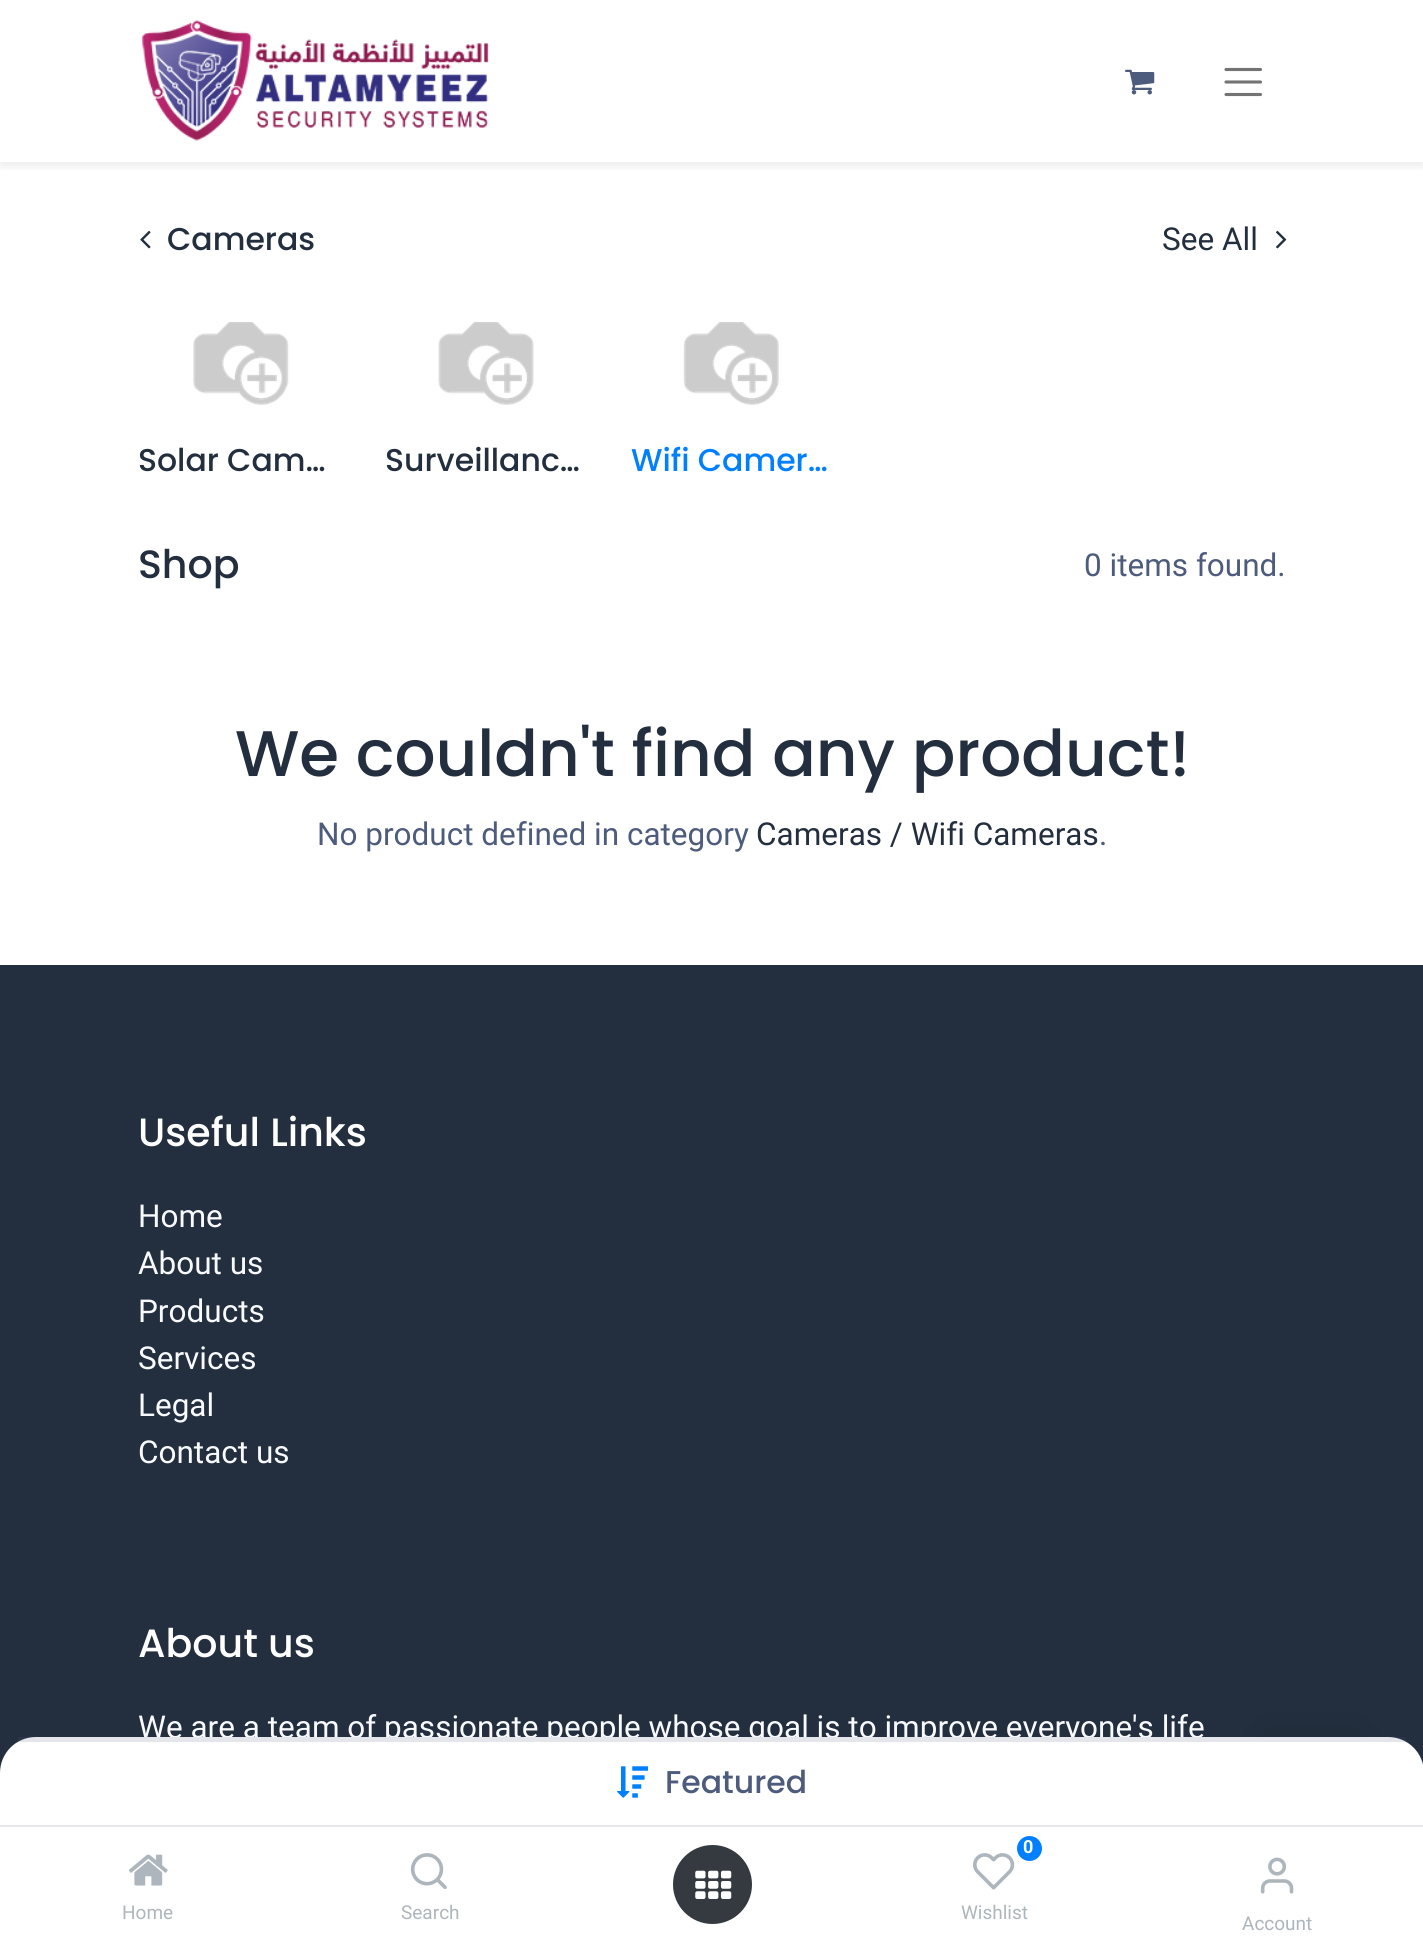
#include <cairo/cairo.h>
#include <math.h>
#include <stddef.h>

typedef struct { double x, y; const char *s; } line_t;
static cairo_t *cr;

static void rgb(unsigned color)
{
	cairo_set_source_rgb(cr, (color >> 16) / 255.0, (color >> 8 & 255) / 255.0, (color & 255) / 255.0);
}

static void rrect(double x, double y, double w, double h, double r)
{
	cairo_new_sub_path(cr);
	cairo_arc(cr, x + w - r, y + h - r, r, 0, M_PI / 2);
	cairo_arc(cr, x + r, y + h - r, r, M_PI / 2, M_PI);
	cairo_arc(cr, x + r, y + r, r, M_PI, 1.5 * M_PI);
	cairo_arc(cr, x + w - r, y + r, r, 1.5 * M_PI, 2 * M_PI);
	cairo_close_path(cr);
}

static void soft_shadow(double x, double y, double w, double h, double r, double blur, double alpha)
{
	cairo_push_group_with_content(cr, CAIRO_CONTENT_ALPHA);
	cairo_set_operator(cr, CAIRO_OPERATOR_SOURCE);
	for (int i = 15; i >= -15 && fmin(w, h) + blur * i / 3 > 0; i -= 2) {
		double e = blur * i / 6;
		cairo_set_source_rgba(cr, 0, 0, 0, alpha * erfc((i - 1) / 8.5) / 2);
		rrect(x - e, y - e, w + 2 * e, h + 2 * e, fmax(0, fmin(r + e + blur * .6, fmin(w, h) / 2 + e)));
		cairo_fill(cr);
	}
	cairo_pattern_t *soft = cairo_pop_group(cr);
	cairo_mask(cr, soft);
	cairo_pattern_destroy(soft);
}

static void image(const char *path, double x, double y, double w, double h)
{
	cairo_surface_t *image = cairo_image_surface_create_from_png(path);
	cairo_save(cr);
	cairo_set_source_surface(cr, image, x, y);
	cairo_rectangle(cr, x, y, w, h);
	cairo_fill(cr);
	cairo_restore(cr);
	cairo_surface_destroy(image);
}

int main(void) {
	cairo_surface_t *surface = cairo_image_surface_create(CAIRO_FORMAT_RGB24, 1423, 1950);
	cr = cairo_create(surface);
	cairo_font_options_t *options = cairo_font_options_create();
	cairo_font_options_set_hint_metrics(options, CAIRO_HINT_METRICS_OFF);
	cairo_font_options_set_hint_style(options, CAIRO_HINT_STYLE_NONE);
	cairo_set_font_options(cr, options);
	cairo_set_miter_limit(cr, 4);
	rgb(0xffffff);
	cairo_paint(cr);
	cairo_save(cr);
	cairo_rectangle(cr, 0, 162, 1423, 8);
	cairo_clip(cr);
	rgb(0x000000);
	soft_shadow(0, 5, 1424, 162, 0, 4.5, 0.07);
	cairo_restore(cr);
	image("img/1.png", 141, 20, 348, 121);
	image("img/2.png", 1125, 69, 30, 26);
	cairo_new_path(cr);
	cairo_move_to(cr, 1226, 69.5);
	cairo_line_to(cr, 1260.5, 69.5);
	cairo_move_to(cr, 1226, 82);
	cairo_line_to(cr, 1260.5, 82);
	cairo_move_to(cr, 1226, 94.5);
	cairo_line_to(cr, 1260.5, 94.5);
	rgb(0x737373);
	cairo_set_line_width(cr, 3.1);
	cairo_set_line_cap(cr, CAIRO_LINE_CAP_ROUND);
	cairo_stroke(cr);
	image("img/3.png", 140, 230, 11, 19);
	image("img/4.png", 1276, 230, 11, 19);
	image("img/5.png", 193, 322, 96, 83);
	image("img/6.png", 438, 322, 96, 83);
	image("img/7.png", 683, 322, 96, 83);
	rgb(0x232f3e);
	cairo_rectangle(cr, 0, 965, 1423, 808);
	cairo_fill(cr);
	rgb(0x000000);
	soft_shadow(1267, 1737, 90, 90, 0, 22.5, 0.1);
	cairo_select_font_face(cr, "Poppins Medium", CAIRO_FONT_SLANT_NORMAL, CAIRO_FONT_WEIGHT_NORMAL);
	cairo_set_font_size(cr, 31.5);
	rgb(0x232f3e);
	cairo_move_to(cr, 167, 250);
	cairo_show_text(cr, "Cameras");
	cairo_select_font_face(cr, "Roboto", CAIRO_FONT_SLANT_NORMAL, CAIRO_FONT_WEIGHT_NORMAL);
	cairo_move_to(cr, 1162, 250);
	cairo_show_text(cr, "See All");
	cairo_select_font_face(cr, "Poppins Medium", CAIRO_FONT_SLANT_NORMAL, CAIRO_FONT_WEIGHT_NORMAL);
	cairo_move_to(cr, 138, 471);
	cairo_show_text(cr, "Solar Cam…");
	cairo_move_to(cr, 385, 471);
	cairo_show_text(cr, "Surveillanc…");
	rgb(0x0080ff);
	cairo_move_to(cr, 631, 471);
	cairo_show_text(cr, "Wifi Camer…");
	cairo_set_font_size(cr, 39.5);
	rgb(0x232f3e);
	cairo_move_to(cr, 138, 578);
	cairo_show_text(cr, "Shop");
	cairo_select_font_face(cr, "Roboto", CAIRO_FONT_SLANT_NORMAL, CAIRO_FONT_WEIGHT_NORMAL);
	cairo_set_font_size(cr, 31.5);
	rgb(0x4d5b7c);
	cairo_move_to(cr, 1084, 576);
	cairo_show_text(cr, "0 items found.");
	cairo_select_font_face(cr, "Poppins Medium", CAIRO_FONT_SLANT_NORMAL, CAIRO_FONT_WEIGHT_NORMAL);
	cairo_set_font_size(cr, 64.4);
	rgb(0x232f3e);
	cairo_move_to(cr, 235, 776);
	cairo_show_text(cr, "We couldn't find any product!");
	cairo_select_font_face(cr, "Roboto", CAIRO_FONT_SLANT_NORMAL, CAIRO_FONT_WEIGHT_NORMAL);
	cairo_set_font_size(cr, 31.5);
	rgb(0x4d5b7c);
	cairo_move_to(cr, 317, 845);
	cairo_show_text(cr, "No product defined in category");
	rgb(0x232f3e);
	cairo_move_to(cr, 756, 845);
	cairo_show_text(cr, "Cameras / Wifi Cameras");
	rgb(0x4d5b7c);
	cairo_move_to(cr, 1099, 845);
	cairo_show_text(cr, ".");
	cairo_select_font_face(cr, "Poppins Medium", CAIRO_FONT_SLANT_NORMAL, CAIRO_FONT_WEIGHT_NORMAL);
	cairo_set_font_size(cr, 39.5);
	rgb(0xffffff);
	cairo_move_to(cr, 138, 1146);
	cairo_show_text(cr, "Useful Links");
	cairo_select_font_face(cr, "Roboto", CAIRO_FONT_SLANT_NORMAL, CAIRO_FONT_WEIGHT_NORMAL);
	cairo_set_font_size(cr, 31.5);
	rgb(0xf9fafe);
	{
		static const line_t items[] = {
			{138, 1227, "Home"},
			{138, 1274, "About us"},
			{138, 1322, "Products"},
			{138, 1369, "Services"},
			{138, 1416, "Legal"},
			{138, 1463, "Contact us"},
		};
		for (size_t i = 0; i < sizeof items / sizeof *items; i++) {
			cairo_move_to(cr, items[i].x, items[i].y);
			cairo_show_text(cr, items[i].s);
		}
	}
	cairo_select_font_face(cr, "Poppins Medium", CAIRO_FONT_SLANT_NORMAL, CAIRO_FONT_WEIGHT_NORMAL);
	cairo_set_font_size(cr, 39.5);
	rgb(0xffffff);
	cairo_move_to(cr, 138, 1657);
	cairo_show_text(cr, "About us");
	cairo_select_font_face(cr, "Roboto", CAIRO_FONT_SLANT_NORMAL, CAIRO_FONT_WEIGHT_NORMAL);
	cairo_set_font_size(cr, 31.5);
	rgb(0xf9fafe);
	cairo_move_to(cr, 138, 1738);
	cairo_show_text(cr, "We are a team of passionate people whose goal is to improve everyone's life");
	rgb(0xffffff);
	cairo_new_path(cr);
	cairo_move_to(cr, 36, 1737);
	cairo_line_to(cr, 1388, 1737);
	cairo_curve_to(cr, 1408, 1737, 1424, 1753, 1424, 1773);
	cairo_line_to(cr, 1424, 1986);
	cairo_line_to(cr, 0, 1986);
	cairo_line_to(cr, 0, 1773);
	cairo_curve_to(cr, 0, 1753, 16, 1737, 36, 1737);
	cairo_close_path(cr);
	cairo_fill(cr);
	cairo_set_source_rgba(cr, 0.302, 0.357, 0.486, 0.15);
	cairo_rectangle(cr, 18, 1737, 1388, 5);
	cairo_fill(cr);
	rgb(0xe4e6eb);
	cairo_rectangle(cr, 0, 1825, 1423, 2);
	cairo_fill(cr);
	image("img/8.png", 617, 1766, 31, 32);
	cairo_select_font_face(cr, "Poppins Medium", CAIRO_FONT_SLANT_NORMAL, CAIRO_FONT_WEIGHT_NORMAL);
	rgb(0x4d5b7c);
	cairo_move_to(cr, 665, 1793);
	cairo_show_text(cr, "Featured");
	image("img/9.png", 129, 1854, 39, 32);
	cairo_select_font_face(cr, "Roboto", CAIRO_FONT_SLANT_NORMAL, CAIRO_FONT_WEIGHT_NORMAL);
	cairo_set_font_size(cr, 19);
	rgb(0xadb5bd);
	cairo_move_to(cr, 122, 1919);
	cairo_show_text(cr, "Home");
	image("img/10.png", 410, 1853, 37, 36);
	cairo_move_to(cr, 401, 1919);
	cairo_show_text(cr, "Search");
	rgb(0x343a40);
	cairo_new_path(cr);
	cairo_arc(cr, 712.5, 1884.5, 39.5, 0, 2 * M_PI);
	cairo_fill(cr);
	image("img/11.png", 695, 1870, 37, 29);
	rgb(0x0080ff);
	cairo_arc(cr, 1029.5, 1848.5, 12.5, 0, 2 * M_PI);
	cairo_fill(cr);
	cairo_select_font_face(cr, "Roboto", CAIRO_FONT_SLANT_NORMAL, CAIRO_FONT_WEIGHT_BOLD);
	cairo_set_font_size(cr, 18);
	rgb(0xffffff);
	cairo_move_to(cr, 1023, 1853);
	cairo_show_text(cr, "0");
	image("img/12.png", 973, 1853, 42, 37);
	cairo_select_font_face(cr, "Roboto", CAIRO_FONT_SLANT_NORMAL, CAIRO_FONT_WEIGHT_NORMAL);
	cairo_set_font_size(cr, 19);
	rgb(0xadb5bd);
	cairo_move_to(cr, 961, 1919);
	cairo_show_text(cr, "Wishlist");
	image("img/13.png", 1260, 1857, 34, 37);
	cairo_move_to(cr, 1242, 1930);
	cairo_show_text(cr, "Account");
	cairo_surface_write_to_png(surface, "page.png");
	cairo_font_options_destroy(options);
	cairo_destroy(cr);
	cairo_surface_destroy(surface);
	return 0;
}
